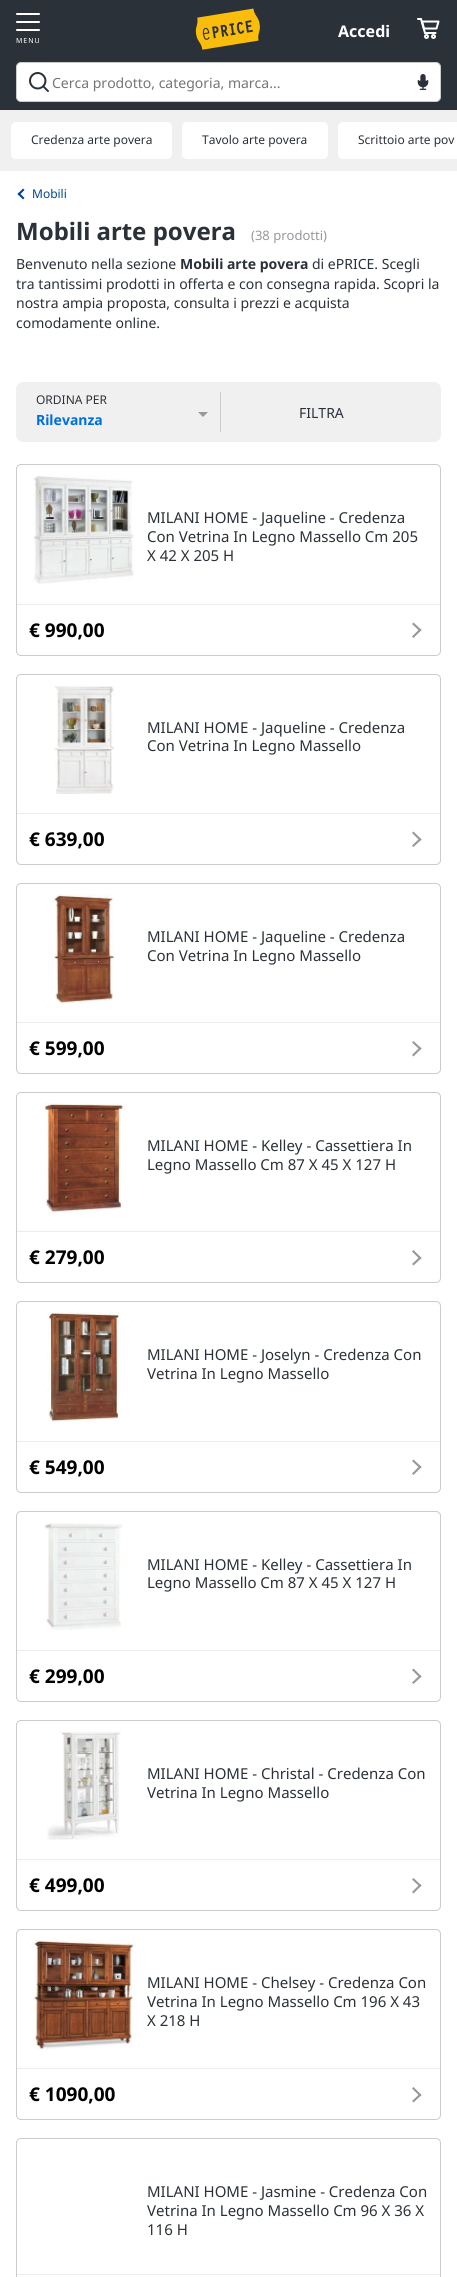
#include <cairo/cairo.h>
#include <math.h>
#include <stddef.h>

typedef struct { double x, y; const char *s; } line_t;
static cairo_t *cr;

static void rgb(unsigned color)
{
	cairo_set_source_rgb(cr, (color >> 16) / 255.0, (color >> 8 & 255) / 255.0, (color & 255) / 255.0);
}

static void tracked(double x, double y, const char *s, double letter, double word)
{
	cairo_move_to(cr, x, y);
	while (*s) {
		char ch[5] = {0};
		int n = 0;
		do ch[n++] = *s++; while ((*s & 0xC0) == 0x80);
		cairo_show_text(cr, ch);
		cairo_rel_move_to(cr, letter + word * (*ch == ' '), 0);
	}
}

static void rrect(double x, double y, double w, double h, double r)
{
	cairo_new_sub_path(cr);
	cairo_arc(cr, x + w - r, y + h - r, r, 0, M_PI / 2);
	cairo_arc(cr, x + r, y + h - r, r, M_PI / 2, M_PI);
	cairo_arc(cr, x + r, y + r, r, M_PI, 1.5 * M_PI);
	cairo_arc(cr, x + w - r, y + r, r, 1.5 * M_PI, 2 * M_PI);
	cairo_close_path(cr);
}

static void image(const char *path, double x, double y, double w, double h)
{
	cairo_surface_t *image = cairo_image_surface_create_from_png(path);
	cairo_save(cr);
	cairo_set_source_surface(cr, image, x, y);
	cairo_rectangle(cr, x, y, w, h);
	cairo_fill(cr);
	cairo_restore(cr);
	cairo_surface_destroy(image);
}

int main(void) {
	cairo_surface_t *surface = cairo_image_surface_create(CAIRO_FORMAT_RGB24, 457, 2277);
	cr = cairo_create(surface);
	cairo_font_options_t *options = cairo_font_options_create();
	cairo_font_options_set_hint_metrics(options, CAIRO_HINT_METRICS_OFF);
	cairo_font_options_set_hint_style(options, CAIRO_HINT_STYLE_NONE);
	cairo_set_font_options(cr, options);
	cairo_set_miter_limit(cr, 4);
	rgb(0xffffff);
	cairo_paint(cr);
	rgb(0x2b3139);
	cairo_rectangle(cr, 0, 0, 457, 110);
	cairo_fill(cr);
	image("img/1.png", 195, 8, 65, 42);
	image("img/2.png", 417, 18, 23, 21);
	rgb(0xffffff);
	rrect(16, 21, 24, 2, 1);
	cairo_fill(cr);
	rrect(16, 13, 24, 2, 1);
	cairo_fill(cr);
	rrect(16, 29, 24, 2, 1);
	cairo_fill(cr);
	rrect(16.5, 62.5, 424, 39, 4.5);
	cairo_fill_preserve(cr);
	rgb(0xcacbcd);
	cairo_set_line_width(cr, 1);
	cairo_stroke(cr);
	image("img/3.png", 29, 72, 20, 20);
	image("img/4.png", 417, 74, 12, 16);
	rgb(0xf0f0f0);
	cairo_rectangle(cr, 0, 110, 457, 61);
	cairo_fill(cr);
	rgb(0xffffff);
	rrect(11, 122, 161, 37, 5);
	cairo_fill(cr);
	rrect(182, 122, 146, 37, 5);
	cairo_fill(cr);
	cairo_new_path(cr);
	cairo_move_to(cr, 343, 122);
	cairo_line_to(cr, 457, 122);
	cairo_line_to(cr, 457, 159);
	cairo_line_to(cr, 343, 159);
	cairo_curve_to(cr, 340, 159, 338, 157, 338, 154);
	cairo_line_to(cr, 338, 127);
	cairo_curve_to(cr, 338, 124, 340, 122, 343, 122);
	cairo_close_path(cr);
	cairo_fill(cr);
	rgb(0x004695);
	cairo_new_path(cr);
	cairo_move_to(cr, 23, 199.5);
	cairo_line_to(cr, 17.5, 194);
	cairo_line_to(cr, 19, 192.5);
	cairo_line_to(cr, 24.5, 198);
	cairo_close_path(cr);
	cairo_fill(cr);
	cairo_new_path(cr);
	cairo_move_to(cr, 19, 195.5);
	cairo_line_to(cr, 17.5, 194);
	cairo_line_to(cr, 23, 188.5);
	cairo_line_to(cr, 24.5, 190);
	cairo_close_path(cr);
	cairo_fill(cr);
	rgb(0xf0f0f0);
	rrect(16, 382, 425, 60, 7);
	cairo_fill(cr);
	rgb(0x95989c);
	cairo_new_path(cr);
	cairo_move_to(cr, 198, 412);
	cairo_line_to(cr, 208, 412);
	cairo_line_to(cr, 203, 417);
	cairo_close_path(cr);
	cairo_fill(cr);
	rgb(0xcacbcd);
	cairo_rectangle(cr, 220, 392, 1, 40);
	cairo_fill(cr);
	rrect(16.5, 464.5, 424, 191, 4.5);
	cairo_stroke(cr);
	image("img/5.png", 33, 475, 102, 110);
	rgb(0xececec);
	cairo_rectangle(cr, 17, 604, 423, 1);
	cairo_fill(cr);
	rgb(0x95989c);
	cairo_new_path(cr);
	cairo_move_to(cr, 413.5, 622.5);
	cairo_line_to(cr, 421.5, 630);
	cairo_line_to(cr, 420, 631.5);
	cairo_line_to(cr, 412, 624);
	cairo_close_path(cr);
	cairo_fill(cr);
	cairo_new_path(cr);
	cairo_move_to(cr, 420, 628.5);
	cairo_line_to(cr, 421.5, 630);
	cairo_line_to(cr, 413.5, 638);
	cairo_line_to(cr, 412, 636.5);
	cairo_close_path(cr);
	cairo_fill(cr);
	rrect(16.5, 674.5, 424, 190, 4.5);
	rgb(0xcacbcd);
	cairo_stroke(cr);
	image("img/6.png", 54, 685, 61, 109);
	rgb(0xececec);
	cairo_rectangle(cr, 17, 813, 423, 1);
	cairo_fill(cr);
	rgb(0x95989c);
	cairo_new_path(cr);
	cairo_move_to(cr, 413.5, 831.5);
	cairo_line_to(cr, 421.5, 839.5);
	cairo_line_to(cr, 420, 841);
	cairo_line_to(cr, 412, 833);
	cairo_close_path(cr);
	cairo_fill(cr);
	cairo_new_path(cr);
	cairo_move_to(cr, 420, 838);
	cairo_line_to(cr, 421.5, 839.5);
	cairo_line_to(cr, 413.5, 847);
	cairo_line_to(cr, 412, 845.5);
	cairo_close_path(cr);
	cairo_fill(cr);
	rrect(16.5, 883.5, 424, 190, 4.5);
	rgb(0xcacbcd);
	cairo_stroke(cr);
	image("img/7.png", 52, 894, 63, 110);
	rgb(0xececec);
	cairo_rectangle(cr, 17, 1022, 423, 1);
	cairo_fill(cr);
	rgb(0x95989c);
	cairo_new_path(cr);
	cairo_move_to(cr, 413.5, 1041);
	cairo_line_to(cr, 421.5, 1048.5);
	cairo_line_to(cr, 420, 1050);
	cairo_line_to(cr, 412, 1042.5);
	cairo_close_path(cr);
	cairo_fill(cr);
	cairo_new_path(cr);
	cairo_move_to(cr, 420, 1047);
	cairo_line_to(cr, 421.5, 1048.5);
	cairo_line_to(cr, 413.5, 1056.5);
	cairo_line_to(cr, 412, 1055);
	cairo_close_path(cr);
	cairo_fill(cr);
	rrect(16.5, 1092.5, 424, 190, 4.5);
	rgb(0xcacbcd);
	cairo_stroke(cr);
	image("img/8.png", 44, 1103, 84, 110);
	rgb(0xececec);
	cairo_rectangle(cr, 17, 1231, 423, 1);
	cairo_fill(cr);
	rgb(0x95989c);
	cairo_new_path(cr);
	cairo_move_to(cr, 413.5, 1250);
	cairo_line_to(cr, 421.5, 1258);
	cairo_line_to(cr, 420, 1259.5);
	cairo_line_to(cr, 412, 1251.5);
	cairo_close_path(cr);
	cairo_fill(cr);
	cairo_new_path(cr);
	cairo_move_to(cr, 420, 1256.5);
	cairo_line_to(cr, 421.5, 1258);
	cairo_line_to(cr, 413.5, 1265.5);
	cairo_line_to(cr, 412, 1264);
	cairo_close_path(cr);
	cairo_fill(cr);
	rrect(16.5, 1301.5, 424, 191, 4.5);
	rgb(0xcacbcd);
	cairo_stroke(cr);
	image("img/9.png", 46, 1312, 75, 110);
	rgb(0xececec);
	cairo_rectangle(cr, 17, 1441, 423, 1);
	cairo_fill(cr);
	rgb(0x95989c);
	cairo_new_path(cr);
	cairo_move_to(cr, 413.5, 1459.5);
	cairo_line_to(cr, 421.5, 1467);
	cairo_line_to(cr, 420, 1468.5);
	cairo_line_to(cr, 412, 1461);
	cairo_close_path(cr);
	cairo_fill(cr);
	cairo_new_path(cr);
	cairo_move_to(cr, 420, 1465.5);
	cairo_line_to(cr, 421.5, 1467);
	cairo_line_to(cr, 413.5, 1475);
	cairo_line_to(cr, 412, 1473.5);
	cairo_close_path(cr);
	cairo_fill(cr);
	rrect(16.5, 1511.5, 424, 190, 4.5);
	rgb(0xcacbcd);
	cairo_stroke(cr);
	image("img/10.png", 44, 1522, 79, 109);
	rgb(0xececec);
	cairo_rectangle(cr, 17, 1650, 423, 1);
	cairo_fill(cr);
	rgb(0x95989c);
	cairo_new_path(cr);
	cairo_move_to(cr, 413.5, 1668.5);
	cairo_line_to(cr, 421.5, 1676.5);
	cairo_line_to(cr, 420, 1678);
	cairo_line_to(cr, 412, 1670);
	cairo_close_path(cr);
	cairo_fill(cr);
	cairo_new_path(cr);
	cairo_move_to(cr, 420, 1675);
	cairo_line_to(cr, 421.5, 1676.5);
	cairo_line_to(cr, 413.5, 1684);
	cairo_line_to(cr, 412, 1682.5);
	cairo_close_path(cr);
	cairo_fill(cr);
	rrect(16.5, 1720.5, 424, 190, 4.5);
	rgb(0xcacbcd);
	cairo_stroke(cr);
	image("img/11.png", 47, 1731, 74, 109);
	rgb(0xececec);
	cairo_rectangle(cr, 17, 1859, 423, 1);
	cairo_fill(cr);
	rgb(0x95989c);
	cairo_new_path(cr);
	cairo_move_to(cr, 413.5, 1878);
	cairo_line_to(cr, 421.5, 1885.5);
	cairo_line_to(cr, 420, 1887);
	cairo_line_to(cr, 412, 1879.5);
	cairo_close_path(cr);
	cairo_fill(cr);
	cairo_new_path(cr);
	cairo_move_to(cr, 420, 1884);
	cairo_line_to(cr, 421.5, 1885.5);
	cairo_line_to(cr, 413.5, 1893.5);
	cairo_line_to(cr, 412, 1892);
	cairo_close_path(cr);
	cairo_fill(cr);
	rrect(16.5, 1929.5, 424, 190, 4.5);
	rgb(0xcacbcd);
	cairo_stroke(cr);
	image("img/12.png", 29, 1940, 107, 110);
	rgb(0xececec);
	cairo_rectangle(cr, 17, 2068, 423, 1);
	cairo_fill(cr);
	rgb(0x95989c);
	cairo_new_path(cr);
	cairo_move_to(cr, 413.5, 2087);
	cairo_line_to(cr, 421.5, 2095);
	cairo_line_to(cr, 420, 2096.5);
	cairo_line_to(cr, 412, 2088.5);
	cairo_close_path(cr);
	cairo_fill(cr);
	cairo_new_path(cr);
	cairo_move_to(cr, 420, 2093.5);
	cairo_line_to(cr, 421.5, 2095);
	cairo_line_to(cr, 413.5, 2102.5);
	cairo_line_to(cr, 412, 2101);
	cairo_close_path(cr);
	cairo_fill(cr);
	rrect(16.5, 2138.5, 424, 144, 4.5);
	rgb(0xcacbcd);
	cairo_stroke(cr);
	rgb(0xececec);
	cairo_rectangle(cr, 17, 2274, 423, 1);
	cairo_fill(cr);
	cairo_select_font_face(cr, "Noto Sans", CAIRO_FONT_SLANT_NORMAL, CAIRO_FONT_WEIGHT_BOLD);
	cairo_set_font_size(cr, 16);
	rgb(0xffffff);
	cairo_move_to(cr, 338, 37);
	cairo_show_text(cr, "Accedi");
	cairo_select_font_face(cr, "Noto Sans", CAIRO_FONT_SLANT_NORMAL, CAIRO_FONT_WEIGHT_NORMAL);
	cairo_set_font_size(cr, 7);
	tracked(16, 43, "MENU", 1, 0);
	cairo_set_font_size(cr, 14);
	rgb(0x757575);
	cairo_move_to(cr, 52, 88);
	cairo_show_text(cr, "Cerca prodotto, categoria, marca...");
	cairo_set_font_size(cr, 12);
	rgb(0x2b3139);
	{
		static const line_t items[] = {
			{31, 144, "Credenza arte povera"},
			{202, 144, "Tavolo arte povera"},
			{358, 144, "Scrittoio arte pov"},
		};
		for (size_t i = 0; i < sizeof items / sizeof *items; i++) {
			cairo_move_to(cr, items[i].x, items[i].y);
			cairo_show_text(cr, items[i].s);
		}
	}
	rgb(0x004695);
	cairo_move_to(cr, 32, 198);
	cairo_show_text(cr, "Mobili");
	cairo_select_font_face(cr, "Noto Sans", CAIRO_FONT_SLANT_NORMAL, CAIRO_FONT_WEIGHT_BOLD);
	cairo_set_font_size(cr, 24);
	rgb(0x2b3139);
	cairo_move_to(cr, 16, 240);
	cairo_show_text(cr, "Mobili arte povera");
	cairo_select_font_face(cr, "Noto Sans", CAIRO_FONT_SLANT_NORMAL, CAIRO_FONT_WEIGHT_NORMAL);
	cairo_set_font_size(cr, 13);
	rgb(0x95989c);
	cairo_move_to(cr, 251, 240);
	cairo_show_text(cr, "(38 prodotti)");
	cairo_set_font_size(cr, 14);
	rgb(0x2b3139);
	cairo_move_to(cr, 16, 269);
	cairo_show_text(cr, "Benvenuto nella sezione");
	cairo_select_font_face(cr, "Noto Sans", CAIRO_FONT_SLANT_NORMAL, CAIRO_FONT_WEIGHT_BOLD);
	cairo_move_to(cr, 180, 269);
	cairo_show_text(cr, "Mobili arte povera");
	cairo_select_font_face(cr, "Noto Sans", CAIRO_FONT_SLANT_NORMAL, CAIRO_FONT_WEIGHT_NORMAL);
	{
		static const line_t items[] = {
			{312, 269, "di ePRICE. Scegli"},
			{16, 289, "tra tantissimi prodotti in offerta e con consegna rapida. Scopri la"},
			{16, 308, "nostra ampia proposta, consulta i prezzi e acquista"},
			{16, 328, "comodamente online."},
		};
		for (size_t i = 0; i < sizeof items / sizeof *items; i++) {
			cairo_move_to(cr, items[i].x, items[i].y);
			cairo_show_text(cr, items[i].s);
		}
	}
	cairo_set_font_size(cr, 12);
	cairo_move_to(cr, 36, 404);
	cairo_show_text(cr, "ORDINA PER");
	cairo_select_font_face(cr, "Noto Sans", CAIRO_FONT_SLANT_NORMAL, CAIRO_FONT_WEIGHT_BOLD);
	cairo_set_font_size(cr, 14);
	rgb(0x006fde);
	cairo_move_to(cr, 36, 425);
	cairo_show_text(cr, "Rilevanza");
	cairo_select_font_face(cr, "Noto Sans", CAIRO_FONT_SLANT_NORMAL, CAIRO_FONT_WEIGHT_NORMAL);
	rgb(0x2b3139);
	cairo_move_to(cr, 299, 418);
	cairo_show_text(cr, "FILTRA");
	cairo_set_font_size(cr, 15);
	{
		static const line_t items[] = {
			{147, 523, "MILANI HOME - Jaqueline - Credenza"},
			{147, 542, "Con Vetrina In Legno Massello Cm 205"},
			{147, 561, "X 42 X 205 H"},
		};
		for (size_t i = 0; i < sizeof items / sizeof *items; i++) {
			cairo_move_to(cr, items[i].x, items[i].y);
			cairo_show_text(cr, items[i].s);
		}
	}
	cairo_select_font_face(cr, "Noto Sans", CAIRO_FONT_SLANT_NORMAL, CAIRO_FONT_WEIGHT_BOLD);
	cairo_set_font_size(cr, 19);
	rgb(0x000000);
	cairo_move_to(cr, 29, 637);
	cairo_show_text(cr, "€ 990,00");
	cairo_select_font_face(cr, "Noto Sans", CAIRO_FONT_SLANT_NORMAL, CAIRO_FONT_WEIGHT_NORMAL);
	cairo_set_font_size(cr, 15);
	rgb(0x2b3139);
	cairo_move_to(cr, 147, 733);
	cairo_show_text(cr, "MILANI HOME - Jaqueline - Credenza");
	cairo_move_to(cr, 147, 751);
	cairo_show_text(cr, "Con Vetrina In Legno Massello");
	cairo_select_font_face(cr, "Noto Sans", CAIRO_FONT_SLANT_NORMAL, CAIRO_FONT_WEIGHT_BOLD);
	cairo_set_font_size(cr, 19);
	rgb(0x000000);
	cairo_move_to(cr, 29, 846);
	cairo_show_text(cr, "€ 639,00");
	cairo_select_font_face(cr, "Noto Sans", CAIRO_FONT_SLANT_NORMAL, CAIRO_FONT_WEIGHT_NORMAL);
	cairo_set_font_size(cr, 15);
	rgb(0x2b3139);
	cairo_move_to(cr, 147, 942);
	cairo_show_text(cr, "MILANI HOME - Jaqueline - Credenza");
	cairo_move_to(cr, 147, 961);
	cairo_show_text(cr, "Con Vetrina In Legno Massello");
	cairo_select_font_face(cr, "Noto Sans", CAIRO_FONT_SLANT_NORMAL, CAIRO_FONT_WEIGHT_BOLD);
	cairo_set_font_size(cr, 19);
	rgb(0x000000);
	cairo_move_to(cr, 29, 1055);
	cairo_show_text(cr, "€ 599,00");
	cairo_select_font_face(cr, "Noto Sans", CAIRO_FONT_SLANT_NORMAL, CAIRO_FONT_WEIGHT_NORMAL);
	cairo_set_font_size(cr, 15);
	rgb(0x2b3139);
	cairo_move_to(cr, 147, 1151);
	cairo_show_text(cr, "MILANI HOME - Kelley - Cassettiera In");
	cairo_move_to(cr, 147, 1170);
	cairo_show_text(cr, "Legno Massello Cm 87 X 45 X 127 H");
	cairo_select_font_face(cr, "Noto Sans", CAIRO_FONT_SLANT_NORMAL, CAIRO_FONT_WEIGHT_BOLD);
	cairo_set_font_size(cr, 19);
	rgb(0x000000);
	cairo_move_to(cr, 29, 1264);
	cairo_show_text(cr, "€ 279,00");
	cairo_select_font_face(cr, "Noto Sans", CAIRO_FONT_SLANT_NORMAL, CAIRO_FONT_WEIGHT_NORMAL);
	cairo_set_font_size(cr, 15);
	rgb(0x2b3139);
	cairo_move_to(cr, 147, 1360);
	cairo_show_text(cr, "MILANI HOME - Joselyn - Credenza Con");
	cairo_move_to(cr, 147, 1379);
	cairo_show_text(cr, "Vetrina In Legno Massello");
	cairo_select_font_face(cr, "Noto Sans", CAIRO_FONT_SLANT_NORMAL, CAIRO_FONT_WEIGHT_BOLD);
	cairo_set_font_size(cr, 19);
	rgb(0x000000);
	cairo_move_to(cr, 29, 1474);
	cairo_show_text(cr, "€ 549,00");
	cairo_select_font_face(cr, "Noto Sans", CAIRO_FONT_SLANT_NORMAL, CAIRO_FONT_WEIGHT_NORMAL);
	cairo_set_font_size(cr, 15);
	rgb(0x2b3139);
	cairo_move_to(cr, 147, 1570);
	cairo_show_text(cr, "MILANI HOME - Kelley - Cassettiera In");
	cairo_move_to(cr, 147, 1588);
	cairo_show_text(cr, "Legno Massello Cm 87 X 45 X 127 H");
	cairo_select_font_face(cr, "Noto Sans", CAIRO_FONT_SLANT_NORMAL, CAIRO_FONT_WEIGHT_BOLD);
	cairo_set_font_size(cr, 19);
	rgb(0x000000);
	cairo_move_to(cr, 29, 1683);
	cairo_show_text(cr, "€ 299,00");
	cairo_select_font_face(cr, "Noto Sans", CAIRO_FONT_SLANT_NORMAL, CAIRO_FONT_WEIGHT_NORMAL);
	cairo_set_font_size(cr, 15);
	rgb(0x2b3139);
	cairo_move_to(cr, 147, 1779);
	cairo_show_text(cr, "MILANI HOME - Christal - Credenza Con");
	cairo_move_to(cr, 147, 1798);
	cairo_show_text(cr, "Vetrina In Legno Massello");
	cairo_select_font_face(cr, "Noto Sans", CAIRO_FONT_SLANT_NORMAL, CAIRO_FONT_WEIGHT_BOLD);
	cairo_set_font_size(cr, 19);
	rgb(0x000000);
	cairo_move_to(cr, 29, 1892);
	cairo_show_text(cr, "€ 499,00");
	cairo_select_font_face(cr, "Noto Sans", CAIRO_FONT_SLANT_NORMAL, CAIRO_FONT_WEIGHT_NORMAL);
	cairo_set_font_size(cr, 15);
	rgb(0x2b3139);
	{
		static const line_t items[] = {
			{147, 1988, "MILANI HOME - Chelsey - Credenza Con"},
			{147, 2007, "Vetrina In Legno Massello Cm 196 X 43"},
			{147, 2026, "X 218 H"},
		};
		for (size_t i = 0; i < sizeof items / sizeof *items; i++) {
			cairo_move_to(cr, items[i].x, items[i].y);
			cairo_show_text(cr, items[i].s);
		}
	}
	cairo_select_font_face(cr, "Noto Sans", CAIRO_FONT_SLANT_NORMAL, CAIRO_FONT_WEIGHT_BOLD);
	cairo_set_font_size(cr, 19);
	rgb(0x000000);
	cairo_move_to(cr, 29, 2101);
	cairo_show_text(cr, "€ 1090,00");
	cairo_select_font_face(cr, "Noto Sans", CAIRO_FONT_SLANT_NORMAL, CAIRO_FONT_WEIGHT_NORMAL);
	cairo_set_font_size(cr, 15);
	rgb(0x2b3139);
	{
		static const line_t items[] = {
			{147, 2197, "MILANI HOME - Jasmine - Credenza Con"},
			{147, 2216, "Vetrina In Legno Massello Cm 96 X 36 X"},
			{147, 2235, "116 H"},
		};
		for (size_t i = 0; i < sizeof items / sizeof *items; i++) {
			cairo_move_to(cr, items[i].x, items[i].y);
			cairo_show_text(cr, items[i].s);
		}
	}
	cairo_surface_write_to_png(surface, "page.png");
	cairo_font_options_destroy(options);
	cairo_destroy(cr);
	cairo_surface_destroy(surface);
	return 0;
}
